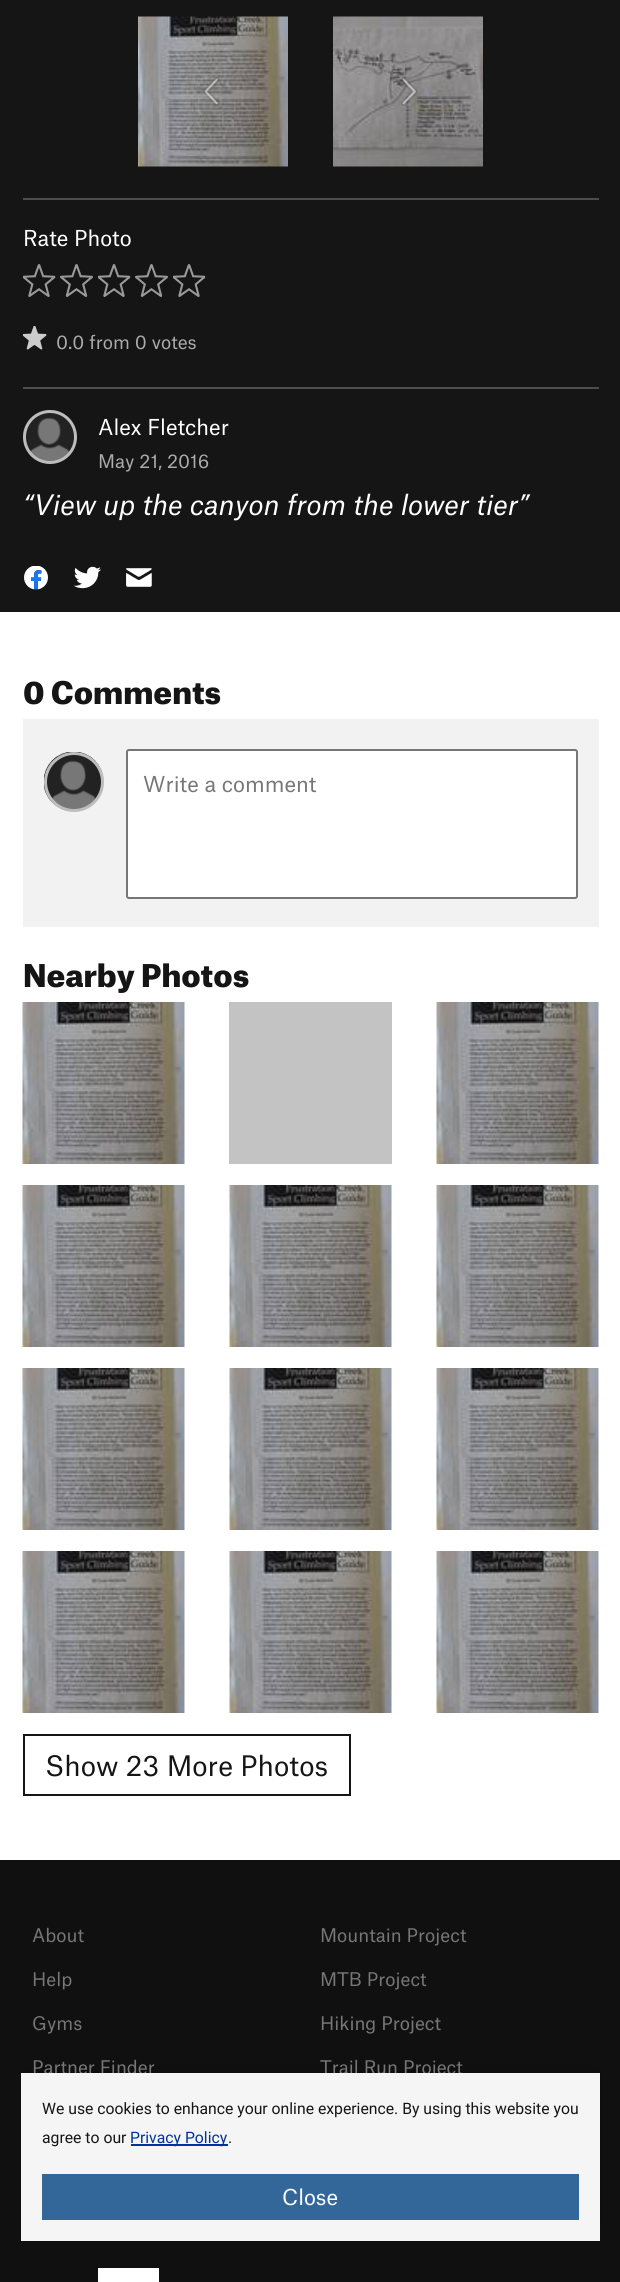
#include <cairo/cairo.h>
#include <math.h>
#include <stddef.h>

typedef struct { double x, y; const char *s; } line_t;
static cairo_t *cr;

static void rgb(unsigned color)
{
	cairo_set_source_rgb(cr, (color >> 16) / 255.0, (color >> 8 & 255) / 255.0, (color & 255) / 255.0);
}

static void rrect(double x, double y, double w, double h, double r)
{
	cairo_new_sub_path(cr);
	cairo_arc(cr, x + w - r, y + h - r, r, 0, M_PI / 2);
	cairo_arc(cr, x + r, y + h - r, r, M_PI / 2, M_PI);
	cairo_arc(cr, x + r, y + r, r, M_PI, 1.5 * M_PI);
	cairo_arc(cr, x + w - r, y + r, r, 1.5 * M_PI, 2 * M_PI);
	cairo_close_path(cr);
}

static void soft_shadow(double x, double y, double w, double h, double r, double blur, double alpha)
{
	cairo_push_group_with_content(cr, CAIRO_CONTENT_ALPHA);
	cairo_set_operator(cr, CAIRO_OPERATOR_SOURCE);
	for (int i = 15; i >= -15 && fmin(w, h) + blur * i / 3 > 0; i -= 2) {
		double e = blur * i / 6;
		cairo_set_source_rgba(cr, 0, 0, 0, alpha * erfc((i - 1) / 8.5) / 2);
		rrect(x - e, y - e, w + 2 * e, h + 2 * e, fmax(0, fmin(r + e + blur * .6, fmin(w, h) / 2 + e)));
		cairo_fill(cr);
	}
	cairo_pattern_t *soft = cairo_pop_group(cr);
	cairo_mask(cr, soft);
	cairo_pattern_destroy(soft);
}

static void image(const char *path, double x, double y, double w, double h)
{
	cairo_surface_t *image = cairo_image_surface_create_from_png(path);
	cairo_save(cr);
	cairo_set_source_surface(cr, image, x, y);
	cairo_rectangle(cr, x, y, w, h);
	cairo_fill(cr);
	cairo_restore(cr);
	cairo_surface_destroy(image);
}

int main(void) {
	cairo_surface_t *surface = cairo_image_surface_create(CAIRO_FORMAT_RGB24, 620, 2282);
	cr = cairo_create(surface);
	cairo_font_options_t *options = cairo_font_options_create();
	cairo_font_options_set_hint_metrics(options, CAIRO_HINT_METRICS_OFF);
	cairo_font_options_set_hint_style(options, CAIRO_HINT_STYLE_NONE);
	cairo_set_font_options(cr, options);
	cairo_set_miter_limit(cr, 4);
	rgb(0xffffff);
	cairo_paint(cr);
	rgb(0x151515);
	cairo_rectangle(cr, 0, 0, 620, 612);
	cairo_fill(cr);
	image("img/1.png", 138, 16, 150, 151);
	image("img/2.png", 203, 77, 17, 29);
	image("img/3.png", 333, 16, 150, 151);
	image("img/4.png", 401, 77, 17, 29);
	rgb(0x4e4d49);
	cairo_rectangle(cr, 23, 198, 576, 2);
	cairo_fill(cr);
	image("img/5.png", 23, 264, 33, 33);
	image("img/6.png", 60, 264, 33, 33);
	image("img/5.png", 98, 264, 33, 33);
	image("img/6.png", 135, 264, 33, 33);
	image("img/5.png", 173, 264, 33, 33);
	image("img/7.png", 23, 326, 24, 24);
	cairo_rectangle(cr, 23, 387, 576, 2);
	cairo_fill(cr);
	image("img/8.png", 23, 410, 53, 53);
	cairo_arc(cr, 50, 437, 25.5, 0, 2 * M_PI);
	rgb(0xbdbdbd);
	cairo_set_line_width(cr, 3);
	cairo_stroke(cr);
	image("img/9.png", 24, 566, 24, 24);
	image("img/10.png", 73, 566, 28, 23);
	image("img/11.png", 126, 568, 26, 19);
	rgb(0xf2f2f2);
	cairo_rectangle(cr, 23, 719, 576, 208);
	cairo_fill(cr);
	image("img/12.png", 44, 752, 60, 60);
	cairo_arc(cr, 74, 782, 28.5, 0, 2 * M_PI);
	rgb(0xbdbdbd);
	cairo_stroke(cr);
	rgb(0xffffff);
	rrect(127, 750, 450, 148, 2);
	cairo_fill_preserve(cr);
	rgb(0x767676);
	cairo_set_line_width(cr, 2);
	cairo_stroke(cr);
	image("img/13.png", 22, 1002, 163, 162);
	rgb(0xc3c3c3);
	cairo_rectangle(cr, 229, 1002, 163, 162);
	cairo_fill(cr);
	image("img/13.png", 436, 1002, 163, 162);
	image("img/13.png", 22, 1185, 163, 162);
	image("img/13.png", 229, 1185, 163, 162);
	image("img/13.png", 436, 1185, 163, 162);
	image("img/13.png", 22, 1368, 163, 162);
	image("img/13.png", 229, 1368, 163, 162);
	image("img/13.png", 436, 1368, 163, 162);
	image("img/13.png", 22, 1551, 163, 162);
	image("img/13.png", 229, 1551, 163, 162);
	image("img/13.png", 436, 1551, 163, 162);
	cairo_rectangle(cr, 24, 1735, 326, 60);
	rgb(0x151515);
	cairo_stroke(cr);
	rgb(0x101010);
	cairo_rectangle(cr, 0, 1860, 620, 422);
	cairo_fill(cr);
	rgb(0xffffff);
	cairo_rectangle(cr, 98, 2268, 61, 14);
	cairo_fill(cr);
	rgb(0x000000);
	soft_shadow(29, 2073, 564, 153, 0, 7.5, 0.25);
	cairo_select_font_face(cr, "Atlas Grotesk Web", CAIRO_FONT_SLANT_NORMAL, CAIRO_FONT_WEIGHT_NORMAL);
	cairo_set_font_size(cr, 21);
	rgb(0xffffff);
	cairo_move_to(cr, 23, 246);
	cairo_show_text(cr, "Rate Photo");
	cairo_set_font_size(cr, 18);
	rgb(0xacacac);
	cairo_move_to(cr, 56, 349);
	cairo_show_text(cr, "0.0 from 0 votes");
	cairo_set_font_size(cr, 21);
	rgb(0xffffff);
	cairo_move_to(cr, 98, 435);
	cairo_show_text(cr, "Alex Fletcher");
	cairo_set_font_size(cr, 18);
	rgb(0xacacac);
	cairo_move_to(cr, 98, 468);
	cairo_show_text(cr, "May 21, 2016");
	cairo_select_font_face(cr, "Atlas Grotesk Web", CAIRO_FONT_SLANT_ITALIC, CAIRO_FONT_WEIGHT_NORMAL);
	cairo_set_font_size(cr, 27);
	rgb(0xffffff);
	cairo_move_to(cr, 23, 515);
	cairo_show_text(cr, "“View up the canyon from the lower tier”");
	cairo_select_font_face(cr, "Atlas Grotesk Web Black", CAIRO_FONT_SLANT_NORMAL, CAIRO_FONT_WEIGHT_NORMAL);
	cairo_set_font_size(cr, 30);
	rgb(0x151515);
	cairo_move_to(cr, 23, 704);
	cairo_show_text(cr, "0 Comments");
	cairo_select_font_face(cr, "Atlas Grotesk Web", CAIRO_FONT_SLANT_NORMAL, CAIRO_FONT_WEIGHT_NORMAL);
	cairo_set_font_size(cr, 21);
	rgb(0x777777);
	cairo_move_to(cr, 143, 792);
	cairo_show_text(cr, "Write a comment");
	cairo_select_font_face(cr, "Atlas Grotesk Web Black", CAIRO_FONT_SLANT_NORMAL, CAIRO_FONT_WEIGHT_NORMAL);
	cairo_set_font_size(cr, 30);
	rgb(0x151515);
	cairo_move_to(cr, 23, 987);
	cairo_show_text(cr, "Nearby Photos");
	cairo_select_font_face(cr, "Atlas Grotesk Web", CAIRO_FONT_SLANT_NORMAL, CAIRO_FONT_WEIGHT_NORMAL);
	cairo_set_font_size(cr, 27);
	cairo_move_to(cr, 45, 1776);
	cairo_show_text(cr, "Show 23 More Photos");
	cairo_set_font_size(cr, 18);
	rgb(0x777777);
	{
		static const line_t items[] = {
			{32, 1942, "About"},
			{320, 1942, "Mountain Project"},
			{32, 1986, "Help"},
			{320, 1986, "MTB Project"},
			{32, 2030, "Gyms"},
			{320, 2030, "Hiking Project"},
			{32, 2074, "Partner Finder"},
			{320, 2074, "Trail Run Project"},
		};
		for (size_t i = 0; i < sizeof items / sizeof *items; i++) {
			cairo_move_to(cr, items[i].x, items[i].y);
			cairo_show_text(cr, items[i].s);
		}
	}
	rgb(0xf5f5f5);
	cairo_rectangle(cr, 21, 2073, 579, 168);
	cairo_fill(cr);
	cairo_select_font_face(cr, "Roboto", CAIRO_FONT_SLANT_NORMAL, CAIRO_FONT_WEIGHT_NORMAL);
	cairo_set_font_size(cr, 15.75);
	rgb(0x151515);
	cairo_move_to(cr, 42, 2114);
	cairo_show_text(cr, "We use cookies to enhance your online experience. By using this website you");
	cairo_move_to(cr, 42, 2143);
	cairo_show_text(cr, "agree to our");
	rgb(0x003399);
	cairo_rectangle(cr, 131, 2144, 97, 2);
	cairo_fill(cr);
	cairo_move_to(cr, 130, 2143);
	cairo_show_text(cr, "Privacy Policy");
	rgb(0x151515);
	cairo_move_to(cr, 228, 2143);
	cairo_show_text(cr, ".");
	rgb(0x336799);
	cairo_rectangle(cr, 42, 2174, 537, 46);
	cairo_fill(cr);
	cairo_select_font_face(cr, "Atlas Grotesk Web", CAIRO_FONT_SLANT_NORMAL, CAIRO_FONT_WEIGHT_NORMAL);
	cairo_set_font_size(cr, 21);
	rgb(0xffffff);
	cairo_move_to(cr, 282, 2205);
	cairo_show_text(cr, "Close");
	cairo_surface_write_to_png(surface, "page.png");
	cairo_font_options_destroy(options);
	cairo_destroy(cr);
	cairo_surface_destroy(surface);
	return 0;
}
